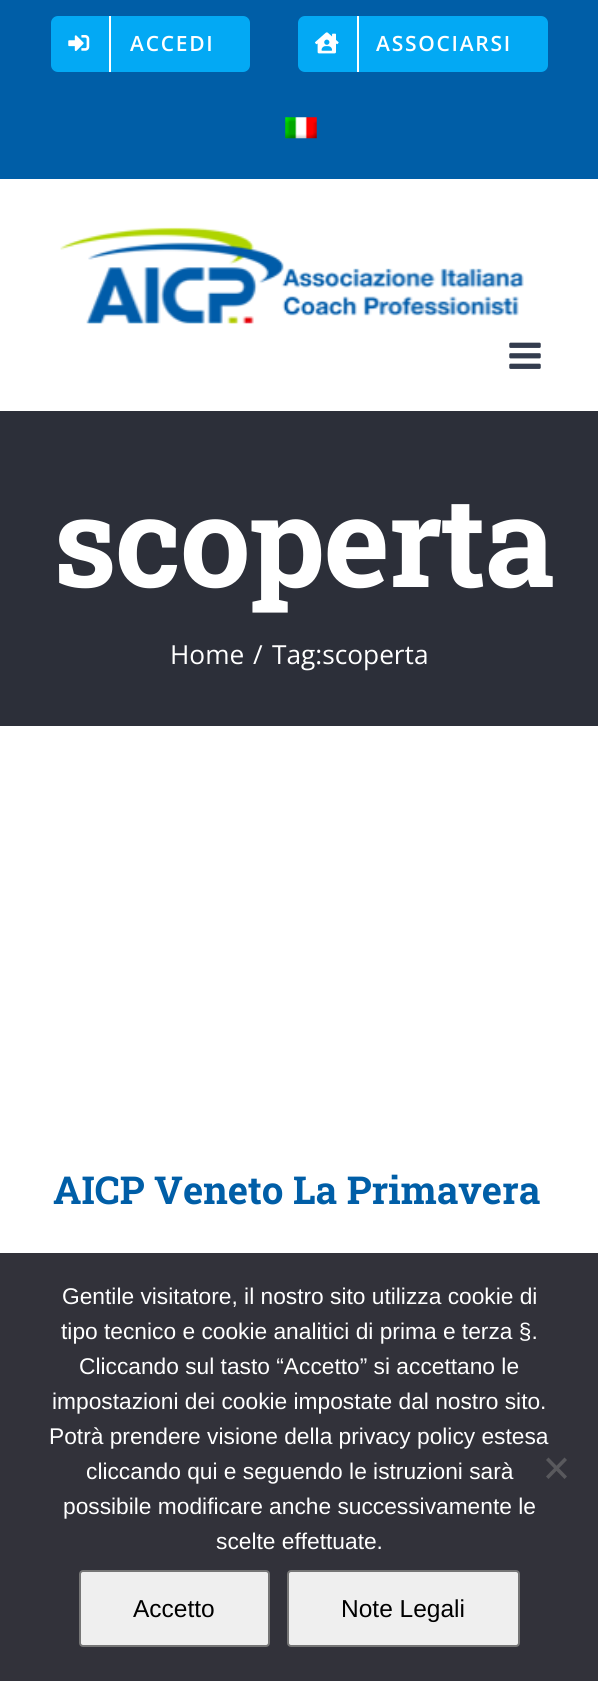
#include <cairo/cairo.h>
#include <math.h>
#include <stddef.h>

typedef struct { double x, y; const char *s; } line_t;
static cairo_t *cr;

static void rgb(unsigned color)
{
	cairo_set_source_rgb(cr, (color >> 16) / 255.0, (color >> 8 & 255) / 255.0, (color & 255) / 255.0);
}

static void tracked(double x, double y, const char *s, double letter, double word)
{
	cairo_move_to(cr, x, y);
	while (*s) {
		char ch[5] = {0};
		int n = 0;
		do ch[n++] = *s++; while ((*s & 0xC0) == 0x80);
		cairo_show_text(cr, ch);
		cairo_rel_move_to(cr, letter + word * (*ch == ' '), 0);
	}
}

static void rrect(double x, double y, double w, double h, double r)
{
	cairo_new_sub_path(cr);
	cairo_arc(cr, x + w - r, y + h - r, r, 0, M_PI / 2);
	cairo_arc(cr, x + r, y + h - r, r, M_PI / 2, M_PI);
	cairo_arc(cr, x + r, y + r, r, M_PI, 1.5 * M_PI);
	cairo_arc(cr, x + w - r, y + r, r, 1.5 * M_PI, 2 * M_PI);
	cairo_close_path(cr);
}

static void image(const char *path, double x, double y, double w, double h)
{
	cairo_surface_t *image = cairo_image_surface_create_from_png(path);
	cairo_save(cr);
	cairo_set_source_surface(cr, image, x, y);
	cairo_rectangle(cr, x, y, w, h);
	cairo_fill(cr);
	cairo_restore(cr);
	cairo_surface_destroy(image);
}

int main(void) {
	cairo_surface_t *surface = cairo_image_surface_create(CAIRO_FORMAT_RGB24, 598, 1681);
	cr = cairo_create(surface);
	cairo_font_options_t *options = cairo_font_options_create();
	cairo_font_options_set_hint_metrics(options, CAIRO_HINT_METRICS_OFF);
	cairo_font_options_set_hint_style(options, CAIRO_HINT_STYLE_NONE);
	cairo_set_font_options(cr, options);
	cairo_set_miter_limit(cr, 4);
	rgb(0xffffff);
	cairo_paint(cr);
	rgb(0x005ea7);
	cairo_rectangle(cr, 0, 0, 598, 179);
	cairo_fill(cr);
	rgb(0x03a9f4);
	rrect(51, 16, 199, 56, 7);
	cairo_fill(cr);
	rgb(0xffffff);
	cairo_rectangle(cr, 109, 16, 2, 56);
	cairo_fill(cr);
	image("img/1.png", 68, 35, 22, 16);
	rgb(0x03a9f4);
	rrect(298, 16, 250, 56, 7);
	cairo_fill(cr);
	rgb(0xffffff);
	cairo_rectangle(cr, 357, 16, 2, 56);
	cairo_fill(cr);
	image("img/2.png", 315, 32, 24, 22);
	image("img/3.png", 285, 117, 32, 22);
	image("img/4.png", 60, 227, 464, 97);
	image("img/5.png", 509, 342, 32, 27);
	rgb(0x2c2f39);
	cairo_rectangle(cr, 0, 411, 598, 315);
	cairo_fill(cr);
	rgb(0x32323a);
	cairo_rectangle(cr, 0, 1253, 598, 428);
	cairo_fill(cr);
	rgb(0x59595d);
	cairo_new_path(cr);
	cairo_move_to(cr, 564.5, 1457.5);
	cairo_line_to(cr, 567, 1460);
	cairo_line_to(cr, 548.5, 1479);
	cairo_line_to(cr, 546, 1476.5);
	cairo_close_path(cr);
	cairo_fill(cr);
	cairo_new_path(cr);
	cairo_move_to(cr, 546, 1460);
	cairo_line_to(cr, 548.5, 1457.5);
	cairo_line_to(cr, 567, 1476.5);
	cairo_line_to(cr, 564.5, 1479);
	cairo_close_path(cr);
	cairo_fill(cr);
	rgb(0xefefef);
	rrect(80, 1571, 189, 75, 3);
	cairo_fill_preserve(cr);
	rgb(0x767676);
	cairo_stroke(cr);
	rgb(0xefefef);
	rrect(288, 1571, 231, 75, 3);
	cairo_fill_preserve(cr);
	rgb(0x767676);
	cairo_stroke(cr);
	cairo_select_font_face(cr, "Open Sans SemiBold", CAIRO_FONT_SLANT_NORMAL, CAIRO_FONT_WEIGHT_NORMAL);
	cairo_set_font_size(cr, 21);
	rgb(0xffffff);
	tracked(130, 51, "ACCEDI", 1.75, 0);
	tracked(376, 51, "ASSOCIARSI", 1.75, 0);
	cairo_select_font_face(cr, "Roboto Slab", CAIRO_FONT_SLANT_NORMAL, CAIRO_FONT_WEIGHT_BOLD);
	cairo_set_font_size(cr, 126);
	tracked(53, 587, "scoperta", -1.75, 0);
	cairo_select_font_face(cr, "Open Sans", CAIRO_FONT_SLANT_NORMAL, CAIRO_FONT_WEIGHT_NORMAL);
	cairo_set_font_size(cr, 26.25);
	{
		static const line_t items[] = {
			{170, 664, "Home"},
			{253, 664, "/"},
			{272, 664, "Tag:scoperta"},
		};
		for (size_t i = 0; i < sizeof items / sizeof *items; i++) {
			cairo_move_to(cr, items[i].x, items[i].y);
			cairo_show_text(cr, items[i].s);
		}
	}
	cairo_select_font_face(cr, "Roboto Slab", CAIRO_FONT_SLANT_NORMAL, CAIRO_FONT_WEIGHT_BOLD);
	cairo_set_font_size(cr, 38.5);
	rgb(0x005ea7);
	cairo_move_to(cr, 53, 1204);
	cairo_show_text(cr, "AICP Veneto La Primavera");
	cairo_select_font_face(cr, "Liberation Sans", CAIRO_FONT_SLANT_NORMAL, CAIRO_FONT_WEIGHT_NORMAL);
	cairo_set_font_size(cr, 22.75);
	rgb(0xffffff);
	{
		static const line_t items[] = {
			{62, 1304, "Gentile visitatore, il nostro sito utilizza cookie di"},
			{61, 1339, "tipo tecnico e cookie analitici di prima e terza §."},
			{79, 1374, "Cliccando sul tasto “Accetto” si accettano le"},
			{52, 1409, "impostazioni dei cookie impostate dal nostro sito."},
			{49, 1444, "Potrà prendere visione della privacy policy estesa"},
			{86, 1479, "cliccando qui e seguendo le istruzioni sarà"},
			{63, 1514, "possibile modificare anche successivamente le"},
			{216, 1549, "scelte effettuate."},
		};
		for (size_t i = 0; i < sizeof items / sizeof *items; i++) {
			cairo_move_to(cr, items[i].x, items[i].y);
			cairo_show_text(cr, items[i].s);
		}
	}
	cairo_set_font_size(cr, 24.5);
	rgb(0x000000);
	cairo_move_to(cr, 133, 1617);
	cairo_show_text(cr, "Accetto");
	cairo_move_to(cr, 341, 1617);
	cairo_show_text(cr, "Note Legali");
	cairo_surface_write_to_png(surface, "page.png");
	cairo_font_options_destroy(options);
	cairo_destroy(cr);
	cairo_surface_destroy(surface);
	return 0;
}
